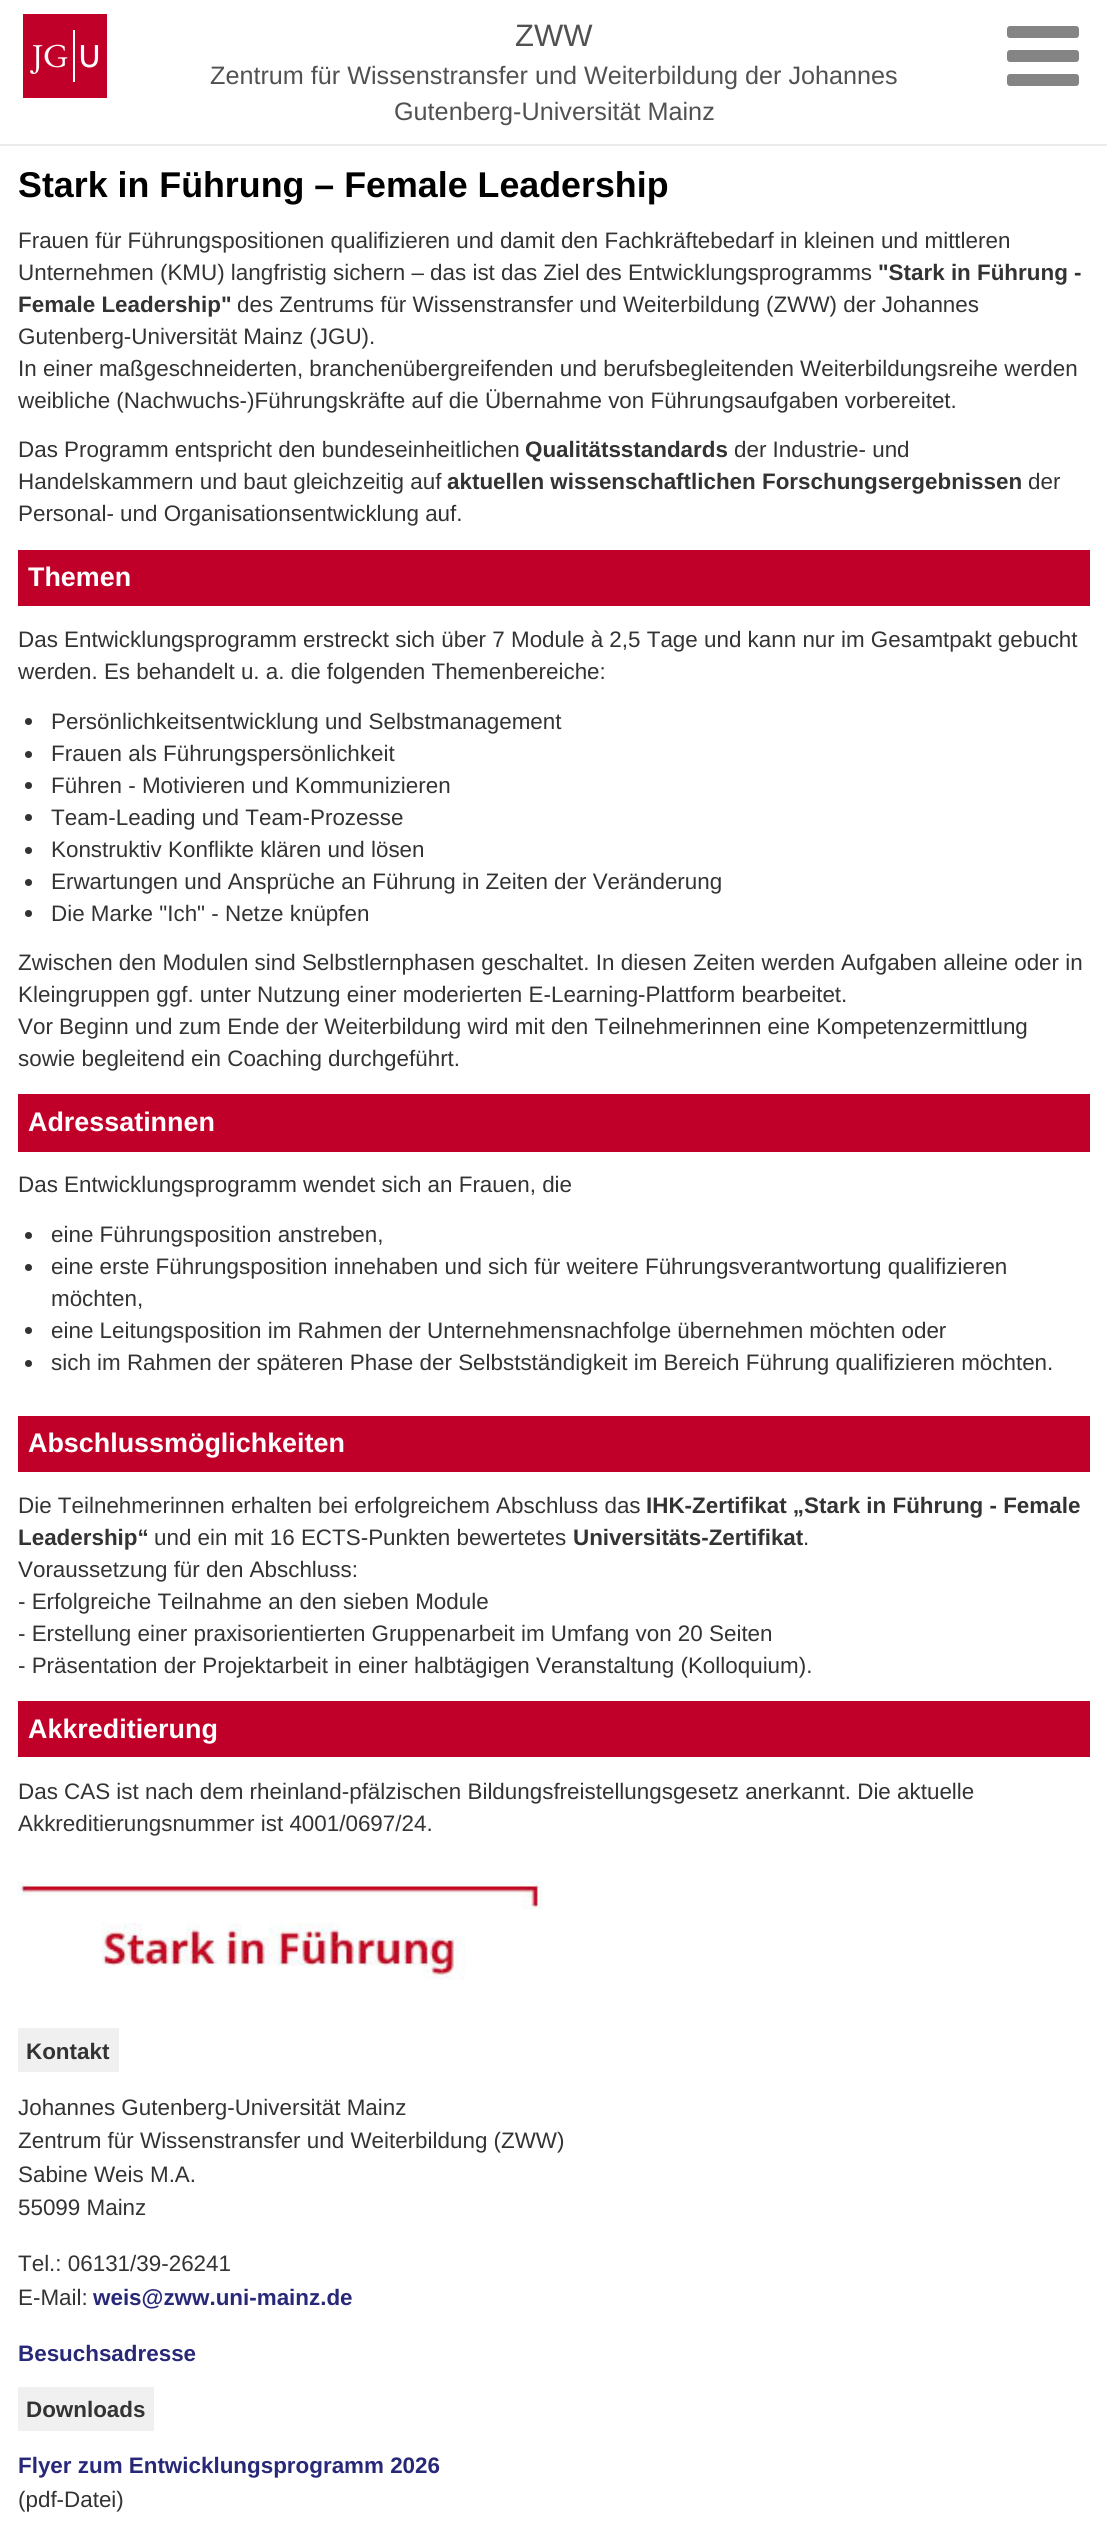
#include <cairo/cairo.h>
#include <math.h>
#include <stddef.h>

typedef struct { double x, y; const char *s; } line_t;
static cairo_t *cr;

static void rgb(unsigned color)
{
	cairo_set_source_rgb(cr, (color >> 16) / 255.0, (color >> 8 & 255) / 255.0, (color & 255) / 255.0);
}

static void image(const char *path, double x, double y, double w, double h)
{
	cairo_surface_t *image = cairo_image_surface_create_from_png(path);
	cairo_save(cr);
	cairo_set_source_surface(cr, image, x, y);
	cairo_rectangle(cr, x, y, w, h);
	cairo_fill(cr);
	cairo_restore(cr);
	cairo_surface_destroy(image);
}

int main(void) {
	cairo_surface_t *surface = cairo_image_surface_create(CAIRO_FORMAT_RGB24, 1107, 2522);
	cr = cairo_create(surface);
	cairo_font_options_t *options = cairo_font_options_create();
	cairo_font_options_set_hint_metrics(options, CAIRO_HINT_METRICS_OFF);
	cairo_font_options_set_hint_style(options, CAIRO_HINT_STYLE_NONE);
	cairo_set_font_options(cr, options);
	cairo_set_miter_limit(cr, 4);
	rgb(0xffffff);
	cairo_paint(cr);
	rgb(0xebebeb);
	cairo_rectangle(cr, 0, 144, 1107, 2);
	cairo_fill(cr);
	image("img/1.png", 23, 14, 84, 84);
	image("img/2.png", 1007, 26, 72, 60);
	rgb(0xc1002a);
	cairo_rectangle(cr, 18, 550, 1072, 56);
	cairo_fill(cr);
	rgb(0x333333);
	cairo_arc(cr, 28.5, 721.5, 3.5, 0, 2 * M_PI);
	cairo_fill(cr);
	cairo_arc(cr, 28.5, 754.5, 3.5, 0, 2 * M_PI);
	cairo_fill(cr);
	cairo_arc(cr, 28.5, 785.5, 3.5, 0, 2 * M_PI);
	cairo_fill(cr);
	cairo_arc(cr, 28.5, 817.5, 3.5, 0, 2 * M_PI);
	cairo_fill(cr);
	cairo_arc(cr, 28.5, 850.5, 3.5, 0, 2 * M_PI);
	cairo_fill(cr);
	cairo_arc(cr, 28.5, 882.5, 3.5, 0, 2 * M_PI);
	cairo_fill(cr);
	cairo_arc(cr, 28.5, 913.5, 3.5, 0, 2 * M_PI);
	cairo_fill(cr);
	rgb(0xc1002a);
	cairo_rectangle(cr, 18, 1094, 1072, 58);
	cairo_fill(cr);
	rgb(0x333333);
	cairo_arc(cr, 28.5, 1235.5, 3.5, 0, 2 * M_PI);
	cairo_fill(cr);
	cairo_arc(cr, 28.5, 1267.5, 3.5, 0, 2 * M_PI);
	cairo_fill(cr);
	cairo_arc(cr, 28.5, 1330.5, 3.5, 0, 2 * M_PI);
	cairo_fill(cr);
	cairo_arc(cr, 28.5, 1363.5, 3.5, 0, 2 * M_PI);
	cairo_fill(cr);
	rgb(0xc1002a);
	cairo_rectangle(cr, 18, 1416, 1072, 56);
	cairo_fill(cr);
	cairo_rectangle(cr, 18, 1701, 1072, 56);
	cairo_fill(cr);
	image("img/3.png", 17, 1881, 526, 99);
	rgb(0xf0f0f0);
	cairo_rectangle(cr, 18, 2028, 101, 44);
	cairo_fill(cr);
	cairo_rectangle(cr, 18, 2387, 136, 44);
	cairo_fill(cr);
	cairo_select_font_face(cr, "Liberation Sans", CAIRO_FONT_SLANT_NORMAL, CAIRO_FONT_WEIGHT_NORMAL);
	cairo_set_font_size(cr, 31);
	rgb(0x515151);
	cairo_move_to(cr, 515, 46);
	cairo_show_text(cr, "ZWW");
	cairo_set_font_size(cr, 25.2);
	cairo_move_to(cr, 210, 84);
	cairo_show_text(cr, "Zentrum für Wissenstransfer und Weiterbildung der Johannes");
	cairo_move_to(cr, 394, 120);
	cairo_show_text(cr, "Gutenberg-Universität Mainz");
	cairo_select_font_face(cr, "Liberation Sans", CAIRO_FONT_SLANT_NORMAL, CAIRO_FONT_WEIGHT_BOLD);
	cairo_set_font_size(cr, 35.8);
	rgb(0x000000);
	cairo_move_to(cr, 18, 197);
	cairo_show_text(cr, "Stark in Führung – Female Leadership");
	cairo_select_font_face(cr, "Liberation Sans", CAIRO_FONT_SLANT_NORMAL, CAIRO_FONT_WEIGHT_NORMAL);
	cairo_set_font_size(cr, 22.4);
	rgb(0x333333);
	cairo_move_to(cr, 18, 248);
	cairo_show_text(cr, "Frauen für Führungspositionen qualifizieren und damit den Fachkräftebedarf in kleinen und mittleren");
	cairo_move_to(cr, 18, 280);
	cairo_show_text(cr, "Unternehmen (KMU) langfristig sichern – das ist das Ziel des Entwicklungsprogramms");
	cairo_select_font_face(cr, "Liberation Sans", CAIRO_FONT_SLANT_NORMAL, CAIRO_FONT_WEIGHT_BOLD);
	cairo_move_to(cr, 878, 280);
	cairo_show_text(cr, "\"Stark in Führung -");
	cairo_move_to(cr, 18, 312);
	cairo_show_text(cr, "Female Leadership\"");
	cairo_select_font_face(cr, "Liberation Sans", CAIRO_FONT_SLANT_NORMAL, CAIRO_FONT_WEIGHT_NORMAL);
	{
		static const line_t items[] = {
			{237, 312, "des Zentrums für Wissenstransfer und Weiterbildung (ZWW) der Johannes"},
			{18, 344, "Gutenberg-Universität Mainz (JGU)."},
			{18, 376, "In einer maßgeschneiderten, branchenübergreifenden und berufsbegleitenden Weiterbildungsreihe werden"},
			{18, 408, "weibliche (Nachwuchs-)Führungskräfte auf die Übernahme von Führungsaufgaben vorbereitet."},
			{18, 457, "Das Programm entspricht den bundeseinheitlichen"},
		};
		for (size_t i = 0; i < sizeof items / sizeof *items; i++) {
			cairo_move_to(cr, items[i].x, items[i].y);
			cairo_show_text(cr, items[i].s);
		}
	}
	cairo_select_font_face(cr, "Liberation Sans", CAIRO_FONT_SLANT_NORMAL, CAIRO_FONT_WEIGHT_BOLD);
	cairo_move_to(cr, 525, 457);
	cairo_show_text(cr, "Qualitätsstandards");
	cairo_select_font_face(cr, "Liberation Sans", CAIRO_FONT_SLANT_NORMAL, CAIRO_FONT_WEIGHT_NORMAL);
	cairo_move_to(cr, 734, 457);
	cairo_show_text(cr, "der Industrie- und");
	cairo_move_to(cr, 18, 489);
	cairo_show_text(cr, "Handelskammern und baut gleichzeitig auf");
	cairo_select_font_face(cr, "Liberation Sans", CAIRO_FONT_SLANT_NORMAL, CAIRO_FONT_WEIGHT_BOLD);
	cairo_move_to(cr, 447, 489);
	cairo_show_text(cr, "aktuellen wissenschaftlichen Forschungsergebnissen");
	cairo_select_font_face(cr, "Liberation Sans", CAIRO_FONT_SLANT_NORMAL, CAIRO_FONT_WEIGHT_NORMAL);
	cairo_move_to(cr, 1028, 489);
	cairo_show_text(cr, "der");
	cairo_move_to(cr, 18, 521);
	cairo_show_text(cr, "Personal- und Organisationsentwicklung auf.");
	cairo_select_font_face(cr, "Liberation Sans", CAIRO_FONT_SLANT_NORMAL, CAIRO_FONT_WEIGHT_BOLD);
	cairo_set_font_size(cr, 26.9);
	rgb(0xffffff);
	cairo_move_to(cr, 28, 586);
	cairo_show_text(cr, "Themen");
	cairo_select_font_face(cr, "Liberation Sans", CAIRO_FONT_SLANT_NORMAL, CAIRO_FONT_WEIGHT_NORMAL);
	cairo_set_font_size(cr, 22.4);
	rgb(0x333333);
	{
		static const line_t items[] = {
			{18, 647, "Das Entwicklungsprogramm erstreckt sich über 7 Module à 2,5 Tage und kann nur im Gesamtpakt gebucht"},
			{18, 679, "werden. Es behandelt u. a. die folgenden Themenbereiche:"},
			{51, 729, "Persönlichkeitsentwicklung und Selbstmanagement"},
			{51, 761, "Frauen als Führungspersönlichkeit"},
			{51, 793, "Führen - Motivieren und Kommunizieren"},
			{51, 825, "Team-Leading und Team-Prozesse"},
			{51, 857, "Konstruktiv Konflikte klären und lösen"},
			{51, 889, "Erwartungen und Ansprüche an Führung in Zeiten der Veränderung"},
			{51, 921, "Die Marke \"Ich\" - Netze knüpfen"},
			{18, 970, "Zwischen den Modulen sind Selbstlernphasen geschaltet. In diesen Zeiten werden Aufgaben alleine oder in"},
			{18, 1002, "Kleingruppen ggf. unter Nutzung einer moderierten E-Learning-Plattform bearbeitet."},
			{18, 1034, "Vor Beginn und zum Ende der Weiterbildung wird mit den Teilnehmerinnen eine Kompetenzermittlung"},
			{18, 1066, "sowie begleitend ein Coaching durchgeführt."},
		};
		for (size_t i = 0; i < sizeof items / sizeof *items; i++) {
			cairo_move_to(cr, items[i].x, items[i].y);
			cairo_show_text(cr, items[i].s);
		}
	}
	cairo_select_font_face(cr, "Liberation Sans", CAIRO_FONT_SLANT_NORMAL, CAIRO_FONT_WEIGHT_BOLD);
	cairo_set_font_size(cr, 26.9);
	rgb(0xffffff);
	cairo_move_to(cr, 28, 1131);
	cairo_show_text(cr, "Adressatinnen");
	cairo_select_font_face(cr, "Liberation Sans", CAIRO_FONT_SLANT_NORMAL, CAIRO_FONT_WEIGHT_NORMAL);
	cairo_set_font_size(cr, 22.4);
	rgb(0x333333);
	{
		static const line_t items[] = {
			{18, 1192, "Das Entwicklungsprogramm wendet sich an Frauen, die"},
			{51, 1242, "eine Führungsposition anstreben,"},
			{51, 1274, "eine erste Führungsposition innehaben und sich für weitere Führungsverantwortung qualifizieren"},
			{51, 1306, "möchten,"},
			{51, 1338, "eine Leitungsposition im Rahmen der Unternehmensnachfolge übernehmen möchten oder"},
			{51, 1370, "sich im Rahmen der späteren Phase der Selbstständigkeit im Bereich Führung qualifizieren möchten."},
		};
		for (size_t i = 0; i < sizeof items / sizeof *items; i++) {
			cairo_move_to(cr, items[i].x, items[i].y);
			cairo_show_text(cr, items[i].s);
		}
	}
	cairo_select_font_face(cr, "Liberation Sans", CAIRO_FONT_SLANT_NORMAL, CAIRO_FONT_WEIGHT_BOLD);
	cairo_set_font_size(cr, 26.9);
	rgb(0xffffff);
	cairo_move_to(cr, 28, 1452);
	cairo_show_text(cr, "Abschlussmöglichkeiten");
	cairo_select_font_face(cr, "Liberation Sans", CAIRO_FONT_SLANT_NORMAL, CAIRO_FONT_WEIGHT_NORMAL);
	cairo_set_font_size(cr, 22.4);
	rgb(0x333333);
	cairo_move_to(cr, 18, 1513);
	cairo_show_text(cr, "Die Teilnehmerinnen erhalten bei erfolgreichem Abschluss das");
	cairo_select_font_face(cr, "Liberation Sans", CAIRO_FONT_SLANT_NORMAL, CAIRO_FONT_WEIGHT_BOLD);
	cairo_move_to(cr, 646, 1513);
	cairo_show_text(cr, "IHK-Zertifikat „Stark in Führung - Female");
	cairo_move_to(cr, 18, 1545);
	cairo_show_text(cr, "Leadership“");
	cairo_select_font_face(cr, "Liberation Sans", CAIRO_FONT_SLANT_NORMAL, CAIRO_FONT_WEIGHT_NORMAL);
	cairo_move_to(cr, 154, 1545);
	cairo_show_text(cr, "und ein mit 16 ECTS-Punkten bewertetes");
	cairo_select_font_face(cr, "Liberation Sans", CAIRO_FONT_SLANT_NORMAL, CAIRO_FONT_WEIGHT_BOLD);
	cairo_move_to(cr, 573, 1545);
	cairo_show_text(cr, "Universitäts-Zertifikat");
	cairo_select_font_face(cr, "Liberation Sans", CAIRO_FONT_SLANT_NORMAL, CAIRO_FONT_WEIGHT_NORMAL);
	{
		static const line_t items[] = {
			{803, 1545, "."},
			{18, 1577, "Voraussetzung für den Abschluss:"},
			{18, 1609, "- Erfolgreiche Teilnahme an den sieben Module"},
			{18, 1641, "- Erstellung einer praxisorientierten Gruppenarbeit im Umfang von 20 Seiten"},
			{18, 1673, "- Präsentation der Projektarbeit in einer halbtägigen Veranstaltung (Kolloquium)."},
		};
		for (size_t i = 0; i < sizeof items / sizeof *items; i++) {
			cairo_move_to(cr, items[i].x, items[i].y);
			cairo_show_text(cr, items[i].s);
		}
	}
	cairo_select_font_face(cr, "Liberation Sans", CAIRO_FONT_SLANT_NORMAL, CAIRO_FONT_WEIGHT_BOLD);
	cairo_set_font_size(cr, 26.9);
	rgb(0xffffff);
	cairo_move_to(cr, 28, 1738);
	cairo_show_text(cr, "Akkreditierung");
	cairo_select_font_face(cr, "Liberation Sans", CAIRO_FONT_SLANT_NORMAL, CAIRO_FONT_WEIGHT_NORMAL);
	cairo_set_font_size(cr, 22.4);
	rgb(0x333333);
	cairo_move_to(cr, 18, 1799);
	cairo_show_text(cr, "Das CAS ist nach dem rheinland-pfälzischen Bildungsfreistellungsgesetz anerkannt. Die aktuelle");
	cairo_move_to(cr, 18, 1831);
	cairo_show_text(cr, "Akkreditierungsnummer ist 4001/0697/24.");
	cairo_select_font_face(cr, "Liberation Sans", CAIRO_FONT_SLANT_NORMAL, CAIRO_FONT_WEIGHT_BOLD);
	cairo_move_to(cr, 26, 2059);
	cairo_show_text(cr, "Kontakt");
	cairo_select_font_face(cr, "Liberation Sans", CAIRO_FONT_SLANT_NORMAL, CAIRO_FONT_WEIGHT_NORMAL);
	{
		static const line_t items[] = {
			{18, 2115, "Johannes Gutenberg-Universität Mainz"},
			{18, 2148, "Zentrum für Wissenstransfer und Weiterbildung (ZWW)"},
			{18, 2182, "Sabine Weis M.A."},
			{18, 2215, "55099 Mainz"},
			{18, 2271, "Tel.: 06131/39-26241"},
			{18, 2305, "E-Mail:"},
		};
		for (size_t i = 0; i < sizeof items / sizeof *items; i++) {
			cairo_move_to(cr, items[i].x, items[i].y);
			cairo_show_text(cr, items[i].s);
		}
	}
	cairo_select_font_face(cr, "Liberation Sans", CAIRO_FONT_SLANT_NORMAL, CAIRO_FONT_WEIGHT_BOLD);
	rgb(0x282879);
	cairo_move_to(cr, 93, 2305);
	cairo_show_text(cr, "weis@zww.uni-mainz.de");
	cairo_move_to(cr, 18, 2361);
	cairo_show_text(cr, "Besuchsadresse");
	rgb(0x333333);
	cairo_move_to(cr, 26, 2417);
	cairo_show_text(cr, "Downloads");
	rgb(0x282879);
	cairo_move_to(cr, 18, 2473);
	cairo_show_text(cr, "Flyer zum Entwicklungsprogramm 2026");
	cairo_select_font_face(cr, "Liberation Sans", CAIRO_FONT_SLANT_NORMAL, CAIRO_FONT_WEIGHT_NORMAL);
	rgb(0x333333);
	cairo_move_to(cr, 18, 2507);
	cairo_show_text(cr, "(pdf-Datei)");
	cairo_surface_write_to_png(surface, "page.png");
	cairo_font_options_destroy(options);
	cairo_destroy(cr);
	cairo_surface_destroy(surface);
	return 0;
}
